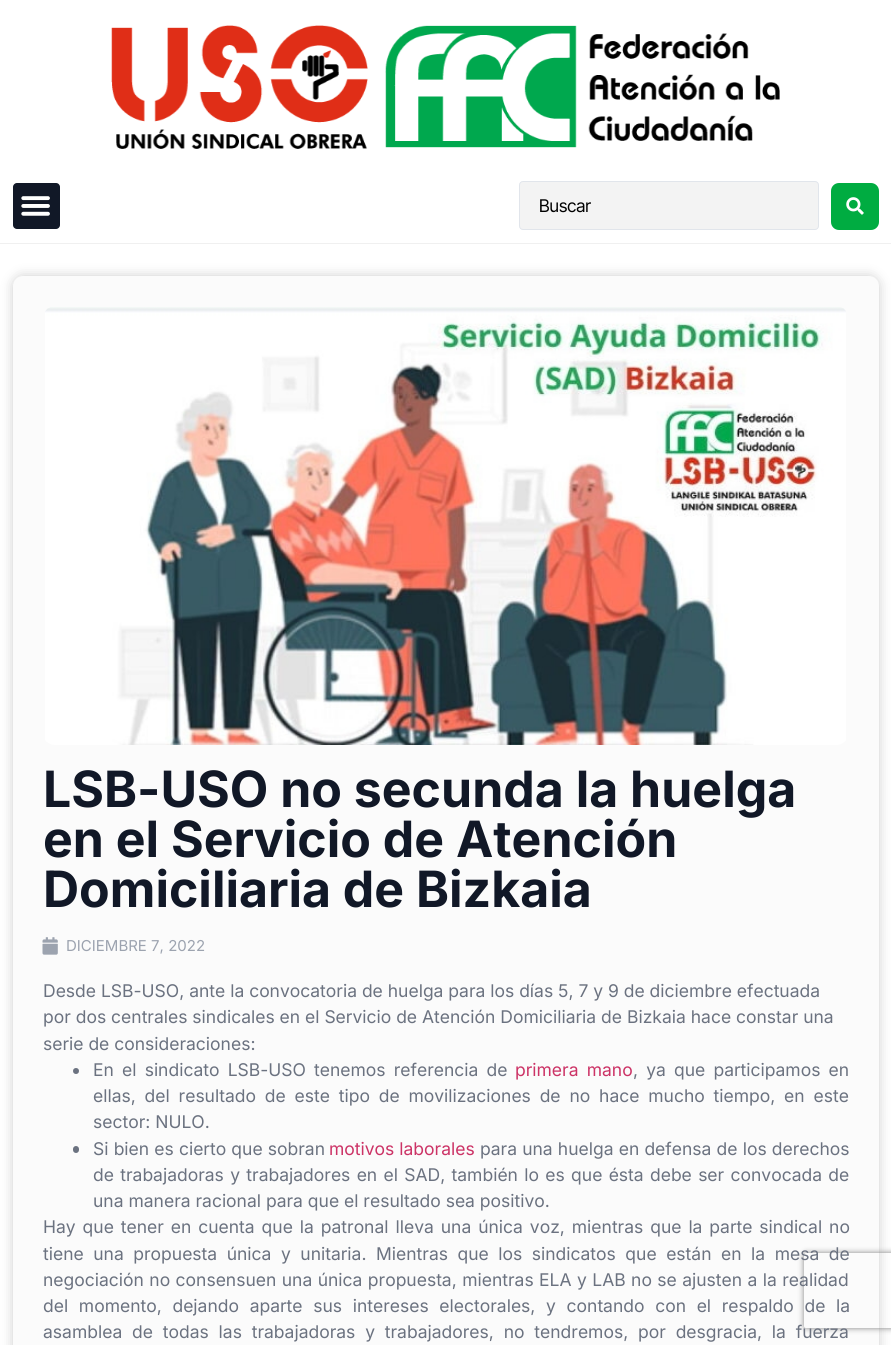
#include <cairo/cairo.h>
#include <math.h>
#include <stddef.h>

typedef struct { double x, y; const char *s; } line_t;
static cairo_t *cr;

static void rgb(unsigned color)
{
	cairo_set_source_rgb(cr, (color >> 16) / 255.0, (color >> 8 & 255) / 255.0, (color & 255) / 255.0);
}

static void tracked(double x, double y, const char *s, double letter, double word)
{
	cairo_move_to(cr, x, y);
	while (*s) {
		char ch[5] = {0};
		int n = 0;
		do ch[n++] = *s++; while ((*s & 0xC0) == 0x80);
		cairo_show_text(cr, ch);
		cairo_rel_move_to(cr, letter + word * (*ch == ' '), 0);
	}
}

static void rrect(double x, double y, double w, double h, double r)
{
	cairo_new_sub_path(cr);
	cairo_arc(cr, x + w - r, y + h - r, r, 0, M_PI / 2);
	cairo_arc(cr, x + r, y + h - r, r, M_PI / 2, M_PI);
	cairo_arc(cr, x + r, y + r, r, M_PI, 1.5 * M_PI);
	cairo_arc(cr, x + w - r, y + r, r, 1.5 * M_PI, 2 * M_PI);
	cairo_close_path(cr);
}

static void soft_shadow(double x, double y, double w, double h, double r, double blur, double alpha)
{
	cairo_push_group_with_content(cr, CAIRO_CONTENT_ALPHA);
	cairo_set_operator(cr, CAIRO_OPERATOR_SOURCE);
	for (int i = 15; i >= -15 && fmin(w, h) + blur * i / 3 > 0; i -= 2) {
		double e = blur * i / 6;
		cairo_set_source_rgba(cr, 0, 0, 0, alpha * erfc((i - 1) / 8.5) / 2);
		rrect(x - e, y - e, w + 2 * e, h + 2 * e, fmax(0, fmin(r + e + blur * .6, fmin(w, h) / 2 + e)));
		cairo_fill(cr);
	}
	cairo_pattern_t *soft = cairo_pop_group(cr);
	cairo_mask(cr, soft);
	cairo_pattern_destroy(soft);
}

static void image(const char *path, double x, double y, double w, double h)
{
	cairo_surface_t *image = cairo_image_surface_create_from_png(path);
	cairo_save(cr);
	cairo_set_source_surface(cr, image, x, y);
	cairo_rectangle(cr, x, y, w, h);
	cairo_fill(cr);
	cairo_restore(cr);
	cairo_surface_destroy(image);
}

int main(void) {
	cairo_surface_t *surface = cairo_image_surface_create(CAIRO_FORMAT_RGB24, 891, 1345);
	cr = cairo_create(surface);
	cairo_font_options_t *options = cairo_font_options_create();
	cairo_font_options_set_hint_metrics(options, CAIRO_HINT_METRICS_OFF);
	cairo_font_options_set_hint_style(options, CAIRO_HINT_STYLE_NONE);
	cairo_set_font_options(cr, options);
	cairo_set_miter_limit(cr, 4);
	rgb(0xffffff);
	cairo_paint(cr);
	rgb(0xf0f0f0);
	cairo_rectangle(cr, 0, 243, 891, 1);
	cairo_fill(cr);
	image("img/1.png", 111, 25, 669, 124);
	rgb(0x111827);
	rrect(13, 183, 47, 46, 4);
	cairo_fill(cr);
	image("img/2.png", 21, 196, 29, 20);
	rgb(0xf3f3f3);
	rrect(519.5, 181.5, 299, 48, 3.5);
	cairo_fill_preserve(cr);
	rgb(0xe1e5eb);
	cairo_set_line_width(cr, 1);
	cairo_stroke(cr);
	rgb(0x00ac41);
	rrect(831, 183, 48, 47, 8);
	cairo_fill(cr);
	image("img/3.png", 846, 197, 18, 18);
	rgb(0x000000);
	soft_shadow(13, 276, 866, 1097, 10, 6, 0.2);
	rgb(0xfbfbfb);
	rrect(13, 276, 866, 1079, 10);
	cairo_fill(cr);
	image("img/4.png", 45, 307, 801, 438);
	image("img/5.png", 42, 937, 16, 18);
	rgb(0x6b7280);
	cairo_arc(cr, 76, 1071, 3, 0, 2 * M_PI);
	cairo_fill(cr);
	rrect(73, 1146, 6, 7, 3);
	cairo_fill(cr);
	cairo_save(cr);
	cairo_set_fill_rule(cr, CAIRO_FILL_RULE_EVEN_ODD);
	cairo_new_path(cr);
	cairo_move_to(cr, 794, 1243);
	cairo_line_to(cr, 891, 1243);
	cairo_line_to(cr, 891, 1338);
	cairo_line_to(cr, 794, 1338);
	cairo_close_path(cr);
	cairo_move_to(cr, 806.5, 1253);
	cairo_line_to(cr, 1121.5, 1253);
	cairo_curve_to(cr, 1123, 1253, 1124, 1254, 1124, 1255.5);
	cairo_line_to(cr, 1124, 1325.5);
	cairo_curve_to(cr, 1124, 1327, 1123, 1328, 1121.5, 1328);
	cairo_line_to(cr, 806.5, 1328);
	cairo_curve_to(cr, 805, 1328, 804, 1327, 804, 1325.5);
	cairo_line_to(cr, 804, 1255.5);
	cairo_curve_to(cr, 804, 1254, 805, 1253, 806.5, 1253);
	cairo_close_path(cr);
	cairo_clip(cr);
	rgb(0x808080);
	soft_shadow(804, 1253, 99, 75, 2.5, 3, 1);
	cairo_restore(cr);
	cairo_select_font_face(cr, "Inter Tight", CAIRO_FONT_SLANT_NORMAL, CAIRO_FONT_WEIGHT_NORMAL);
	cairo_set_font_size(cr, 17.5);
	rgb(0x000000);
	cairo_move_to(cr, 539, 212);
	cairo_show_text(cr, "Buscar");
	cairo_select_font_face(cr, "Inter", CAIRO_FONT_SLANT_NORMAL, CAIRO_FONT_WEIGHT_BOLD);
	cairo_set_font_size(cr, 50);
	rgb(0x111827);
	{
		static const line_t items[] = {
			{43, 807, "LSB-USO no secunda la huelga"},
			{43, 857, "en el Servicio de Atención"},
			{43, 907, "Domiciliaria de Bizkaia"},
		};
		for (size_t i = 0; i < sizeof items / sizeof *items; i++) {
			cairo_move_to(cr, items[i].x, items[i].y);
			cairo_show_text(cr, items[i].s);
		}
	}
	cairo_select_font_face(cr, "Inter", CAIRO_FONT_SLANT_NORMAL, CAIRO_FONT_WEIGHT_NORMAL);
	cairo_set_font_size(cr, 15);
	rgb(0x9ca3af);
	cairo_move_to(cr, 66, 951);
	cairo_show_text(cr, "DICIEMBRE 7, 2022");
	cairo_set_font_size(cr, 17.5);
	rgb(0x6b7280);
	{
		static const line_t items[] = {
			{43, 997, "Desde LSB-USO, ante la convocatoria de huelga para los días 5, 7 y 9 de diciembre efectuada"},
			{43, 1023, "por dos centrales sindicales en el Servicio de Atención Domiciliaria de Bizkaia hace constar una"},
			{43, 1050, "serie de consideraciones:"},
		};
		for (size_t i = 0; i < sizeof items / sizeof *items; i++) {
			cairo_move_to(cr, items[i].x, items[i].y);
			cairo_show_text(cr, items[i].s);
		}
	}
	tracked(93, 1076, "En el sindicato LSB-USO tenemos referencia de", 0, 3.25);
	rgb(0xcc3366);
	tracked(515, 1076, "primera mano", 0, 3.25);
	rgb(0x6b7280);
	tracked(633, 1076, ", ya que participamos en", 0, 3.25);
	tracked(93, 1102, "ellas, del resultado de este tipo de movilizaciones de no hace mucho tiempo, en este", 0, 3.9);
	cairo_move_to(cr, 93, 1128);
	cairo_show_text(cr, "sector: NULO.");
	tracked(93, 1155, "Si bien es cierto que sobran", 0, 0.25);
	rgb(0xcc3366);
	cairo_move_to(cr, 329, 1155);
	cairo_show_text(cr, "motivos laborales");
	rgb(0x6b7280);
	tracked(480, 1155, "para una huelga en defensa de los derechos", 0, 0.25);
	tracked(93, 1181, "de trabajadoras y trabajadores en el SAD, también lo es que ésta debe ser convocada de", 0, 1.4);
	cairo_move_to(cr, 93, 1207);
	cairo_show_text(cr, "una manera racional para que el resultado sea positivo.");
	tracked(43, 1233, "Hay que tener en cuenta que la patronal lleva una única voz, mientras que la parte sindical no", 0, 2);
	tracked(43, 1260, "tiene una propuesta única y unitaria. Mientras que los sindicatos que están en la mesa de", 0, 4.6);
	tracked(43, 1286, "negociación no consensuen una única propuesta, mientras ELA y LAB no se ajusten a la realidad", 0, 0.5);
	tracked(43, 1312, "del momento, dejando aparte sus intereses electorales, y contando con el respaldo de la", 0, 5.75);
	tracked(43, 1338, "asamblea de todas las trabajadoras y trabajadores, no tendremos, por desgracia, la fuerza", 0, 4.9);
	cairo_surface_write_to_png(surface, "page.png");
	cairo_font_options_destroy(options);
	cairo_destroy(cr);
	cairo_surface_destroy(surface);
	return 0;
}
